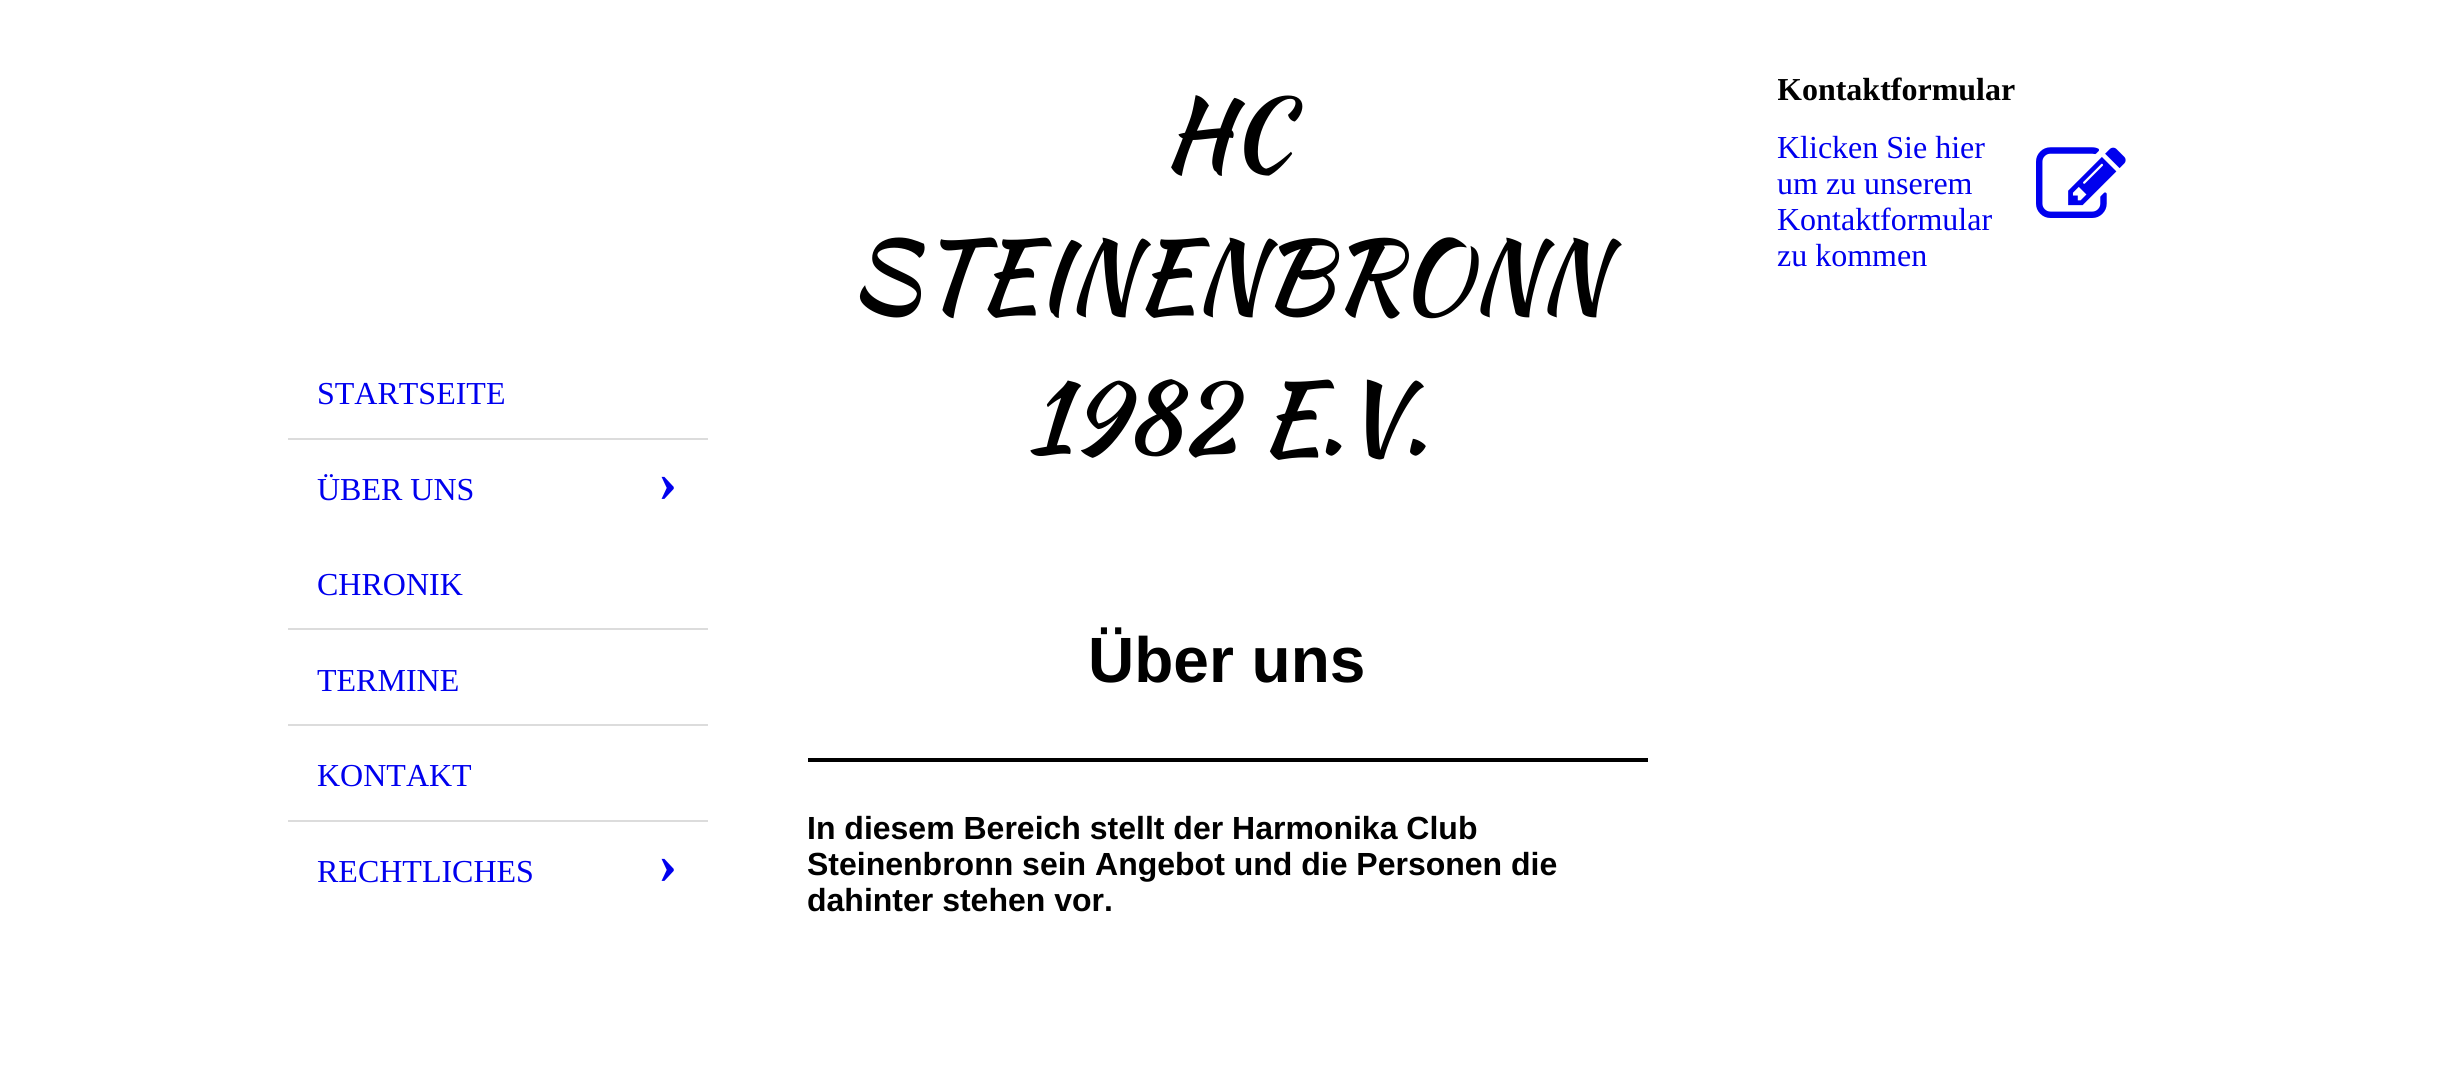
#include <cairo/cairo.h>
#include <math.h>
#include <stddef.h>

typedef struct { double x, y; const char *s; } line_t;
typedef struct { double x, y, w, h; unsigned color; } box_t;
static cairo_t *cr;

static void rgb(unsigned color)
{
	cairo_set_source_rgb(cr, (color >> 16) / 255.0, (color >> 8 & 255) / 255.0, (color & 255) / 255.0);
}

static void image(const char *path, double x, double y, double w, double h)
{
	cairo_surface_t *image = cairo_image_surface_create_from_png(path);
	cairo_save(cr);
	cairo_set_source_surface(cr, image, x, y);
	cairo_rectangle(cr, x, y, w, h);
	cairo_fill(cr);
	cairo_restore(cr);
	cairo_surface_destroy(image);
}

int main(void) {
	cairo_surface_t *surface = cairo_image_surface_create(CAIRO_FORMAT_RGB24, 2454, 1087);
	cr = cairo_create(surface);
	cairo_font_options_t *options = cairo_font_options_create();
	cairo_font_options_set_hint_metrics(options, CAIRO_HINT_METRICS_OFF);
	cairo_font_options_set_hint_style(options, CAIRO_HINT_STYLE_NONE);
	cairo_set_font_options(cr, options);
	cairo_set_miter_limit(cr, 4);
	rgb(0xffffff);
	cairo_paint(cr);
	{
		static const box_t items[] = {
			{288, 438, 420, 2, 0xdcdcdc},
			{288, 628, 420, 2, 0xdcdcdc},
			{288, 724, 420, 2, 0xdcdcdc},
			{288, 820, 420, 2, 0xdcdcdc},
			{808, 758, 840, 4, 0x000000},
		};
		for (size_t i = 0; i < sizeof items / sizeof *items; i++) {
			rgb(items[i].color);
			cairo_rectangle(cr, items[i].x, items[i].y, items[i].w, items[i].h);
			cairo_fill(cr);
		}
	}
	image("img/1.png", 2036, 147, 90, 71);
	cairo_select_font_face(cr, "Liberation Serif", CAIRO_FONT_SLANT_NORMAL, CAIRO_FONT_WEIGHT_NORMAL);
	cairo_set_font_size(cr, 32);
	rgb(0x0000ee);
	cairo_move_to(cr, 317, 404);
	cairo_show_text(cr, "STARTSEITE");
	cairo_move_to(cr, 317, 500);
	cairo_show_text(cr, "ÜBER UNS");
	cairo_select_font_face(cr, "Liberation Serif", CAIRO_FONT_SLANT_NORMAL, CAIRO_FONT_WEIGHT_BOLD);
	cairo_set_font_size(cr, 58);
	cairo_move_to(cr, 658, 501);
	cairo_show_text(cr, "›");
	cairo_select_font_face(cr, "Liberation Serif", CAIRO_FONT_SLANT_NORMAL, CAIRO_FONT_WEIGHT_NORMAL);
	cairo_set_font_size(cr, 32);
	{
		static const line_t items[] = {
			{317, 595, "CHRONIK"},
			{317, 691, "TERMINE"},
			{317, 786, "KONTAKT"},
			{317, 882, "RECHTLICHES"},
		};
		for (size_t i = 0; i < sizeof items / sizeof *items; i++) {
			cairo_move_to(cr, items[i].x, items[i].y);
			cairo_show_text(cr, items[i].s);
		}
	}
	cairo_select_font_face(cr, "Liberation Serif", CAIRO_FONT_SLANT_NORMAL, CAIRO_FONT_WEIGHT_BOLD);
	cairo_set_font_size(cr, 58);
	cairo_move_to(cr, 658, 883);
	cairo_show_text(cr, "›");
	cairo_select_font_face(cr, "Kaushan Script", CAIRO_FONT_SLANT_NORMAL, CAIRO_FONT_WEIGHT_NORMAL);
	cairo_set_font_size(cr, 98.25);
	rgb(0x000000);
	{
		static const line_t items[] = {
			{1164, 168, "HC"},
			{850, 310, "STEINENBRONN"},
			{1027, 452, "1982 E.V."},
		};
		for (size_t i = 0; i < sizeof items / sizeof *items; i++) {
			cairo_move_to(cr, items[i].x, items[i].y);
			cairo_show_text(cr, items[i].s);
		}
	}
	cairo_select_font_face(cr, "Liberation Sans", CAIRO_FONT_SLANT_NORMAL, CAIRO_FONT_WEIGHT_BOLD);
	cairo_set_font_size(cr, 64);
	cairo_move_to(cr, 1088, 682);
	cairo_show_text(cr, "Über uns");
	cairo_set_font_size(cr, 32);
	{
		static const line_t items[] = {
			{807, 839, "In diesem Bereich stellt der Harmonika Club"},
			{807, 875, "Steinenbronn sein Angebot und die Personen die"},
			{807, 911, "dahinter stehen vor."},
		};
		for (size_t i = 0; i < sizeof items / sizeof *items; i++) {
			cairo_move_to(cr, items[i].x, items[i].y);
			cairo_show_text(cr, items[i].s);
		}
	}
	cairo_save(cr);
	cairo_rectangle(cr, 1778, 72, 360, 234);
	cairo_clip(cr);
	cairo_select_font_face(cr, "Liberation Serif", CAIRO_FONT_SLANT_NORMAL, CAIRO_FONT_WEIGHT_BOLD);
	cairo_move_to(cr, 1777, 100);
	cairo_show_text(cr, "Kontaktformular");
	cairo_restore(cr);
	cairo_select_font_face(cr, "Liberation Serif", CAIRO_FONT_SLANT_NORMAL, CAIRO_FONT_WEIGHT_NORMAL);
	rgb(0x0000ee);
	{
		static const line_t items[] = {
			{1777, 158, "Klicken Sie hier"},
			{1777, 194, "um zu unserem"},
			{1777, 230, "Kontaktformular"},
			{1777, 266, "zu kommen"},
		};
		for (size_t i = 0; i < sizeof items / sizeof *items; i++) {
			cairo_move_to(cr, items[i].x, items[i].y);
			cairo_show_text(cr, items[i].s);
		}
	}
	cairo_surface_write_to_png(surface, "page.png");
	cairo_font_options_destroy(options);
	cairo_destroy(cr);
	cairo_surface_destroy(surface);
	return 0;
}
